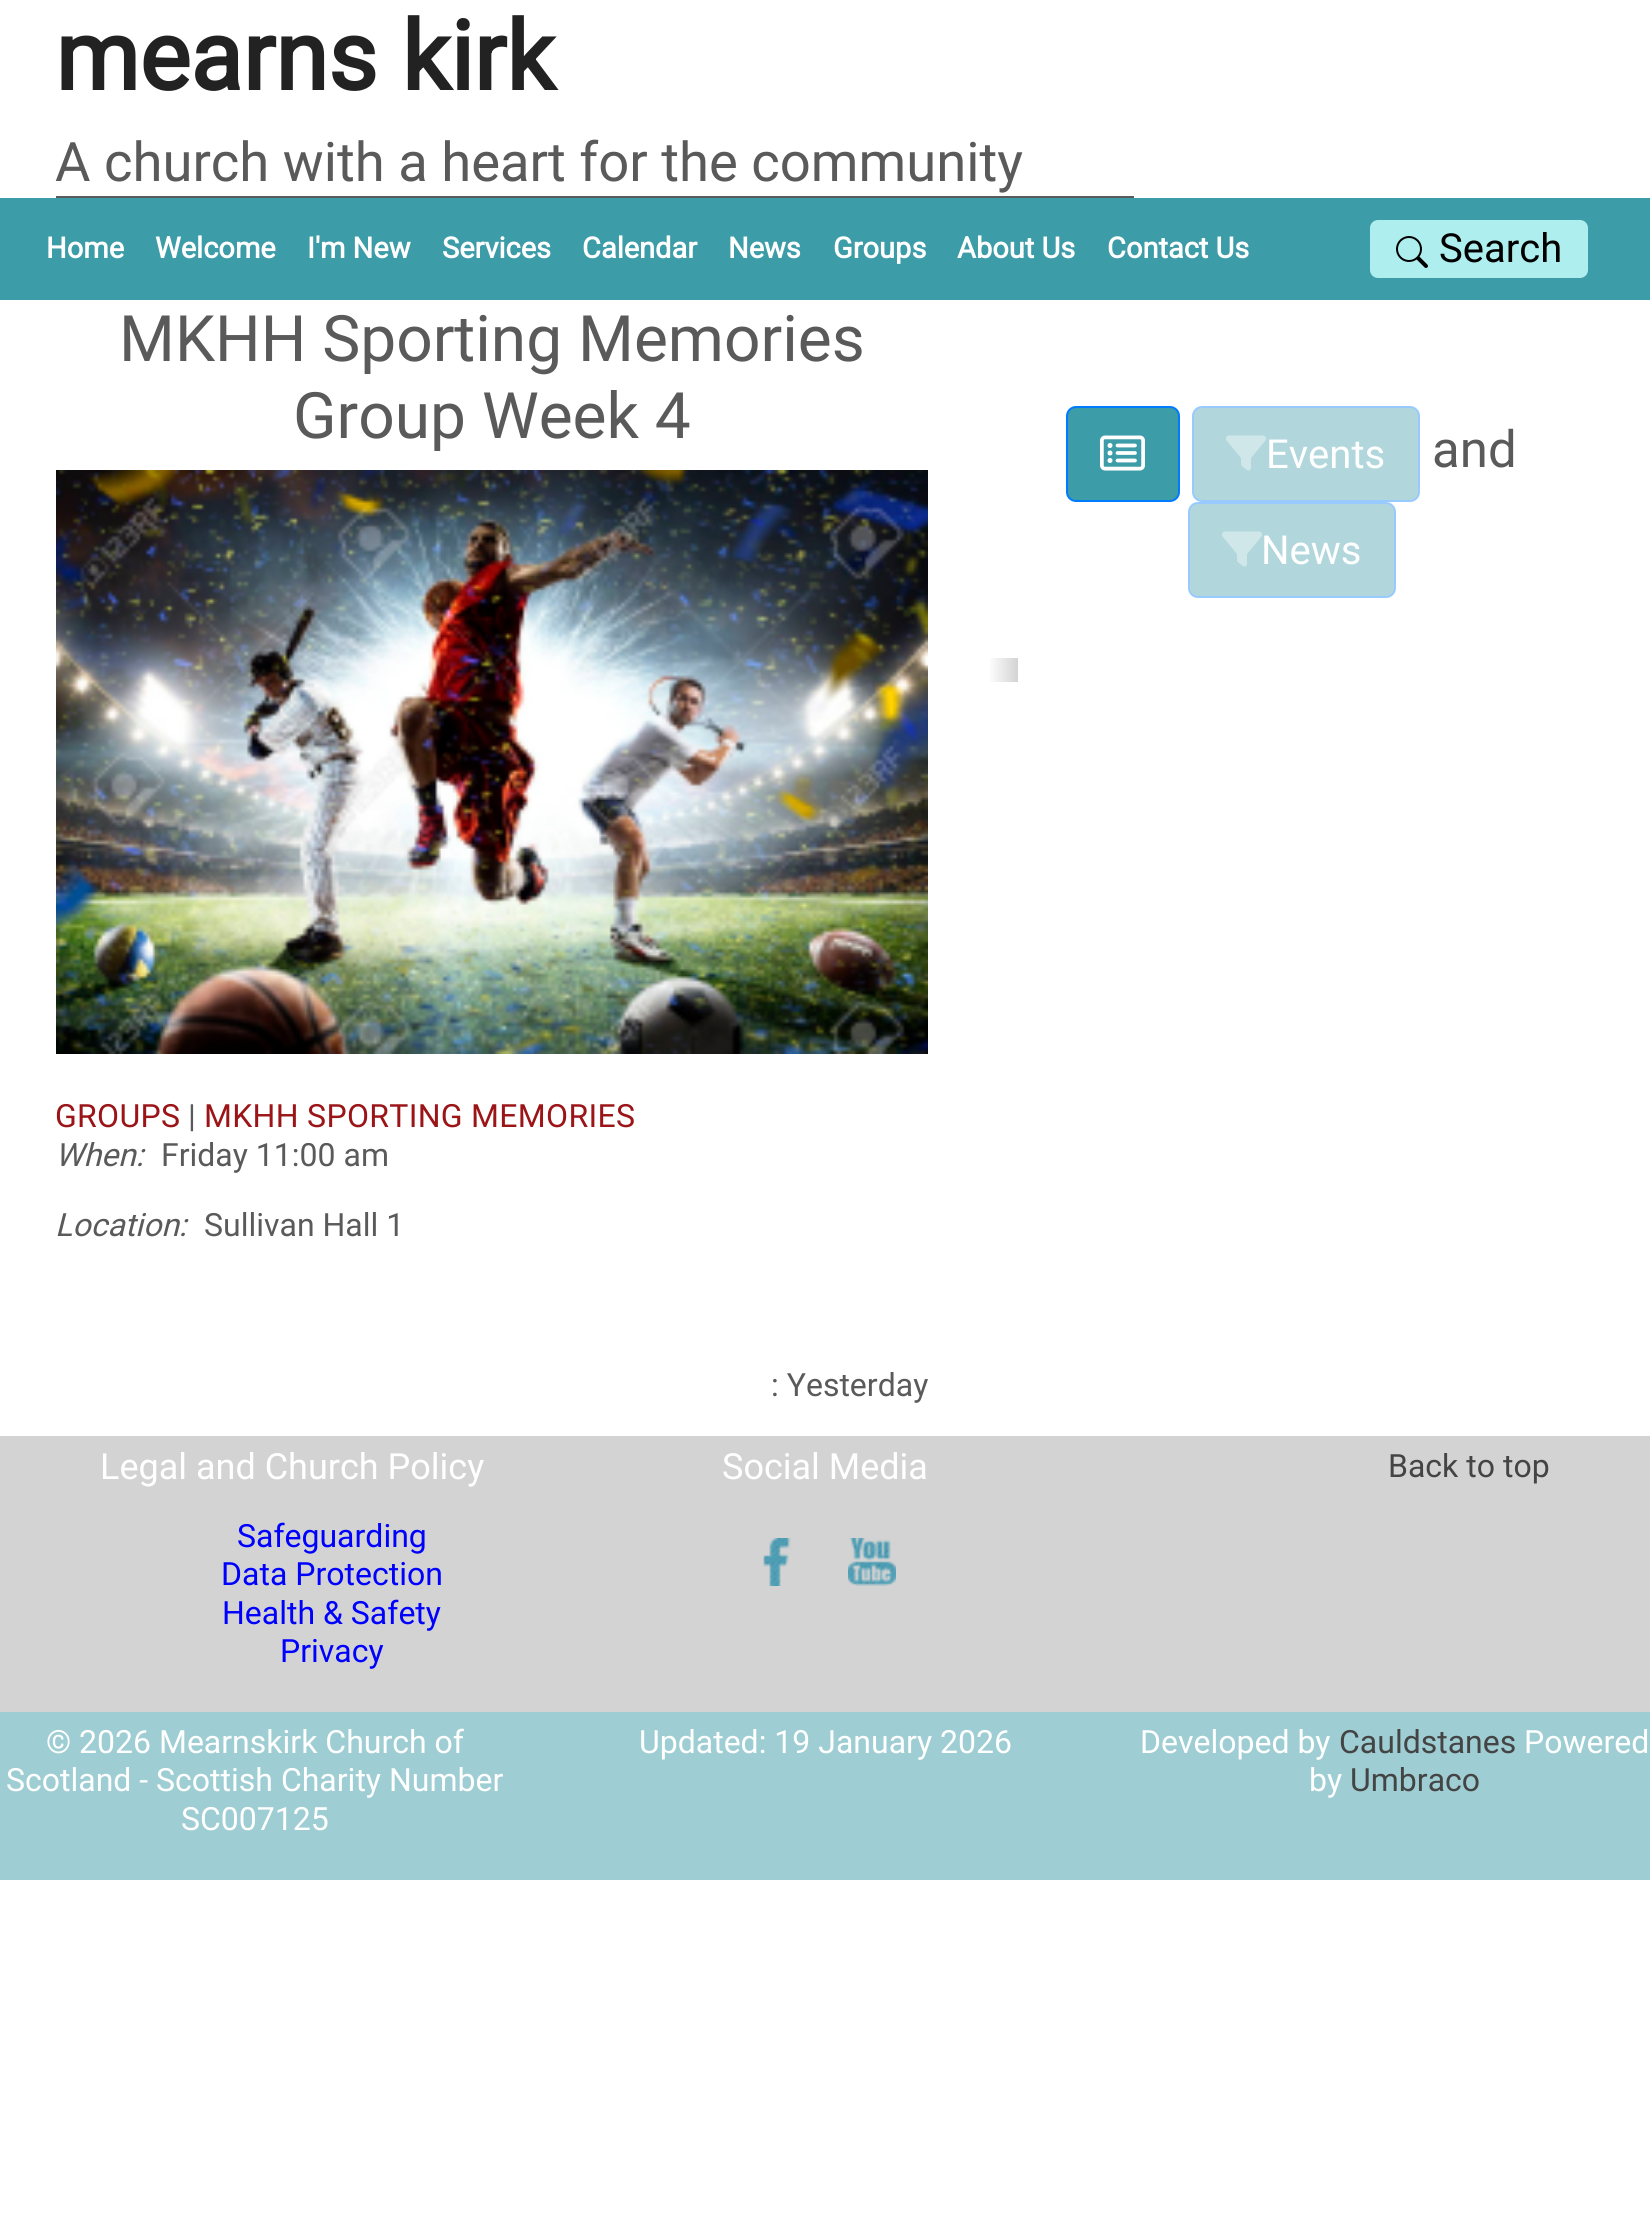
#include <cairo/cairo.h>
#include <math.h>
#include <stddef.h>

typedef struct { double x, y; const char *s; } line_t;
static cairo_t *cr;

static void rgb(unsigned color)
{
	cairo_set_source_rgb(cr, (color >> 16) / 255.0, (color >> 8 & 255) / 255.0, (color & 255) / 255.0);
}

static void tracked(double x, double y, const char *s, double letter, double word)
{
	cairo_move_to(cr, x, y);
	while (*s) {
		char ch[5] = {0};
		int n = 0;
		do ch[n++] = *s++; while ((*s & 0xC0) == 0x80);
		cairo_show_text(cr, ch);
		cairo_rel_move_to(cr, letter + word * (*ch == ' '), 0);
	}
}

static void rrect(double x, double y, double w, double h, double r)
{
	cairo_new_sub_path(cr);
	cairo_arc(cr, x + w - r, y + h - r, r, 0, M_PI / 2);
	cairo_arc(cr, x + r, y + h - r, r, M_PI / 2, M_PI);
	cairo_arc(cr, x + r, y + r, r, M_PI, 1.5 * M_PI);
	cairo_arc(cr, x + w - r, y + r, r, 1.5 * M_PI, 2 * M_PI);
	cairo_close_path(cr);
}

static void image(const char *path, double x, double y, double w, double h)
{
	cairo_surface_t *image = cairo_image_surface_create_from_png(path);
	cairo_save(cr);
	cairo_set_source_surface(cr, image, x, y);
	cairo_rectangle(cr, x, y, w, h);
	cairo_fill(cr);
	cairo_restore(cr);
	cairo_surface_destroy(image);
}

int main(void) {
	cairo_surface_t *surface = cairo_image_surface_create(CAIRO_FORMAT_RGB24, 1650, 2239);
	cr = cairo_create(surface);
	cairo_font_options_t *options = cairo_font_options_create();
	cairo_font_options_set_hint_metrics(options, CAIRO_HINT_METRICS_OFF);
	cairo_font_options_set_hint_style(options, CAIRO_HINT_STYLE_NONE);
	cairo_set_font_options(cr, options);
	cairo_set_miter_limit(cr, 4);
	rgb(0xffffff);
	cairo_paint(cr);
	rgb(0x5a5a5a);
	cairo_rectangle(cr, 56, 196, 1078, 2);
	cairo_fill(cr);
	rgb(0x3c9ca7);
	cairo_rectangle(cr, 0, 198, 1650, 102);
	cairo_fill(cr);
	rgb(0xafeeee);
	rrect(1370, 220, 218, 58, 8);
	cairo_fill(cr);
	image("img/1.png", 1396, 236, 32, 32);
	image("img/2.png", 56, 470, 872, 584);
	rgb(0x3c9ca7);
	rrect(1067, 407, 112, 94, 9);
	cairo_fill_preserve(cr);
	rgb(0x007bff);
	cairo_stroke(cr);
	image("img/3.png", 1100, 435, 45, 36);
	rgb(0xb1d7dc);
	rrect(1193, 407, 226, 94, 9);
	cairo_fill_preserve(cr);
	rgb(0x99caff);
	cairo_stroke(cr);
	image("img/4.png", 1226, 435, 40, 36);
	rgb(0xb1d7dc);
	rrect(1189, 503, 206, 94, 9);
	cairo_fill_preserve(cr);
	rgb(0x99caff);
	cairo_stroke(cr);
	image("img/4.png", 1222, 531, 40, 36);
	image("img/5.png", 990, 658, 28, 12);
	image("img/6.png", 990, 670, 28, 12);
	rgb(0xd3d3d3);
	cairo_rectangle(cr, 0, 1436, 1650, 276);
	cairo_fill(cr);
	image("img/7.png", 763, 1538, 28, 48);
	image("img/8.png", 848, 1538, 48, 48);
	rgb(0x9eced3);
	cairo_rectangle(cr, 0, 1712, 1650, 168);
	cairo_fill(cr);
	cairo_select_font_face(cr, "Roboto", CAIRO_FONT_SLANT_NORMAL, CAIRO_FONT_WEIGHT_BOLD);
	cairo_set_font_size(cr, 96);
	rgb(0x222222);
	cairo_move_to(cr, 55, 90);
	cairo_show_text(cr, "mearns kirk");
	cairo_select_font_face(cr, "Roboto", CAIRO_FONT_SLANT_NORMAL, CAIRO_FONT_WEIGHT_NORMAL);
	cairo_set_font_size(cr, 54.4);
	rgb(0x5a5a5a);
	cairo_move_to(cr, 55, 181);
	cairo_show_text(cr, "A church with a heart for the community");
	cairo_select_font_face(cr, "Roboto", CAIRO_FONT_SLANT_NORMAL, CAIRO_FONT_WEIGHT_BOLD);
	cairo_set_font_size(cr, 29);
	rgb(0xffffff);
	{
		static const line_t items[] = {
			{46, 258, "Home"},
			{155, 258, "Welcome"},
			{307, 258, "I'm New"},
			{442, 258, "Services"},
			{582, 258, "Calendar"},
			{728, 258, "News"},
			{833, 258, "Groups"},
			{957, 258, "About Us"},
			{1107, 258, "Contact Us"},
		};
		for (size_t i = 0; i < sizeof items / sizeof *items; i++) {
			cairo_move_to(cr, items[i].x, items[i].y);
			cairo_show_text(cr, items[i].s);
		}
	}
	cairo_select_font_face(cr, "Roboto", CAIRO_FONT_SLANT_NORMAL, CAIRO_FONT_WEIGHT_NORMAL);
	cairo_set_font_size(cr, 40);
	rgb(0x000000);
	cairo_move_to(cr, 1439, 262);
	cairo_show_text(cr, "Search");
	cairo_set_font_size(cr, 64);
	rgb(0x5a5a5a);
	cairo_move_to(cr, 119, 361);
	cairo_show_text(cr, "MKHH Sporting Memories");
	cairo_move_to(cr, 293, 438);
	cairo_show_text(cr, "Group Week 4");
	cairo_set_font_size(cr, 32);
	rgb(0x9b1518);
	tracked(55, 1127, "GROUPS", 0.3, 0);
	rgb(0x5a5a5a);
	cairo_move_to(cr, 188, 1127);
	cairo_show_text(cr, "|");
	rgb(0x9b1518);
	tracked(204, 1127, "MKHH SPORTING MEMORIES", 0.3, 0);
	cairo_select_font_face(cr, "Roboto", CAIRO_FONT_SLANT_ITALIC, CAIRO_FONT_WEIGHT_NORMAL);
	rgb(0x5a5a5a);
	cairo_move_to(cr, 55, 1166);
	cairo_show_text(cr, "When:");
	cairo_select_font_face(cr, "Roboto", CAIRO_FONT_SLANT_NORMAL, CAIRO_FONT_WEIGHT_NORMAL);
	cairo_move_to(cr, 161, 1166);
	cairo_show_text(cr, "Friday 11:00 am");
	cairo_select_font_face(cr, "Roboto", CAIRO_FONT_SLANT_ITALIC, CAIRO_FONT_WEIGHT_NORMAL);
	cairo_move_to(cr, 55, 1236);
	cairo_show_text(cr, "Location:");
	cairo_select_font_face(cr, "Roboto", CAIRO_FONT_SLANT_NORMAL, CAIRO_FONT_WEIGHT_NORMAL);
	cairo_move_to(cr, 204, 1236);
	cairo_show_text(cr, "Sullivan Hall 1");
	cairo_move_to(cr, 771, 1396);
	cairo_show_text(cr, ": Yesterday");
	cairo_set_font_size(cr, 40);
	rgb(0xffffff);
	cairo_move_to(cr, 1266, 468);
	cairo_show_text(cr, "Events");
	cairo_set_font_size(cr, 51);
	rgb(0x5a5a5a);
	cairo_move_to(cr, 1432, 467);
	cairo_show_text(cr, "and");
	cairo_set_font_size(cr, 40);
	rgb(0xffffff);
	cairo_move_to(cr, 1261, 564);
	cairo_show_text(cr, "News");
	cairo_set_font_size(cr, 36);
	cairo_move_to(cr, 100, 1479);
	cairo_show_text(cr, "Legal and Church Policy");
	cairo_set_font_size(cr, 32);
	rgb(0x0000ff);
	{
		static const line_t items[] = {
			{237, 1547, "Safeguarding"},
			{221, 1585, "Data Protection"},
			{222, 1624, "Health & Safety"},
			{280, 1662, "Privacy"},
		};
		for (size_t i = 0; i < sizeof items / sizeof *items; i++) {
			cairo_move_to(cr, items[i].x, items[i].y);
			cairo_show_text(cr, items[i].s);
		}
	}
	cairo_set_font_size(cr, 36);
	rgb(0xffffff);
	cairo_move_to(cr, 722, 1479);
	cairo_show_text(cr, "Social Media");
	cairo_set_font_size(cr, 32);
	rgb(0x444444);
	cairo_move_to(cr, 1388, 1477);
	cairo_show_text(cr, "Back to top");
	rgb(0xffffff);
	{
		static const line_t items[] = {
			{46, 1753, "© 2026 Mearnskirk Church of"},
			{6, 1791, "Scotland - Scottish Charity Number"},
			{181, 1830, "SC007125"},
			{639, 1753, "Updated: 19 January 2026"},
			{1140, 1753, "Developed by"},
		};
		for (size_t i = 0; i < sizeof items / sizeof *items; i++) {
			cairo_move_to(cr, items[i].x, items[i].y);
			cairo_show_text(cr, items[i].s);
		}
	}
	rgb(0x444444);
	cairo_move_to(cr, 1339, 1753);
	cairo_show_text(cr, "Cauldstanes");
	rgb(0xffffff);
	cairo_move_to(cr, 1524, 1753);
	cairo_show_text(cr, "Powered");
	cairo_move_to(cr, 1309, 1791);
	cairo_show_text(cr, "by");
	rgb(0x444444);
	cairo_move_to(cr, 1350, 1791);
	cairo_show_text(cr, "Umbraco");
	cairo_surface_write_to_png(surface, "page.png");
	cairo_font_options_destroy(options);
	cairo_destroy(cr);
	cairo_surface_destroy(surface);
	return 0;
}
